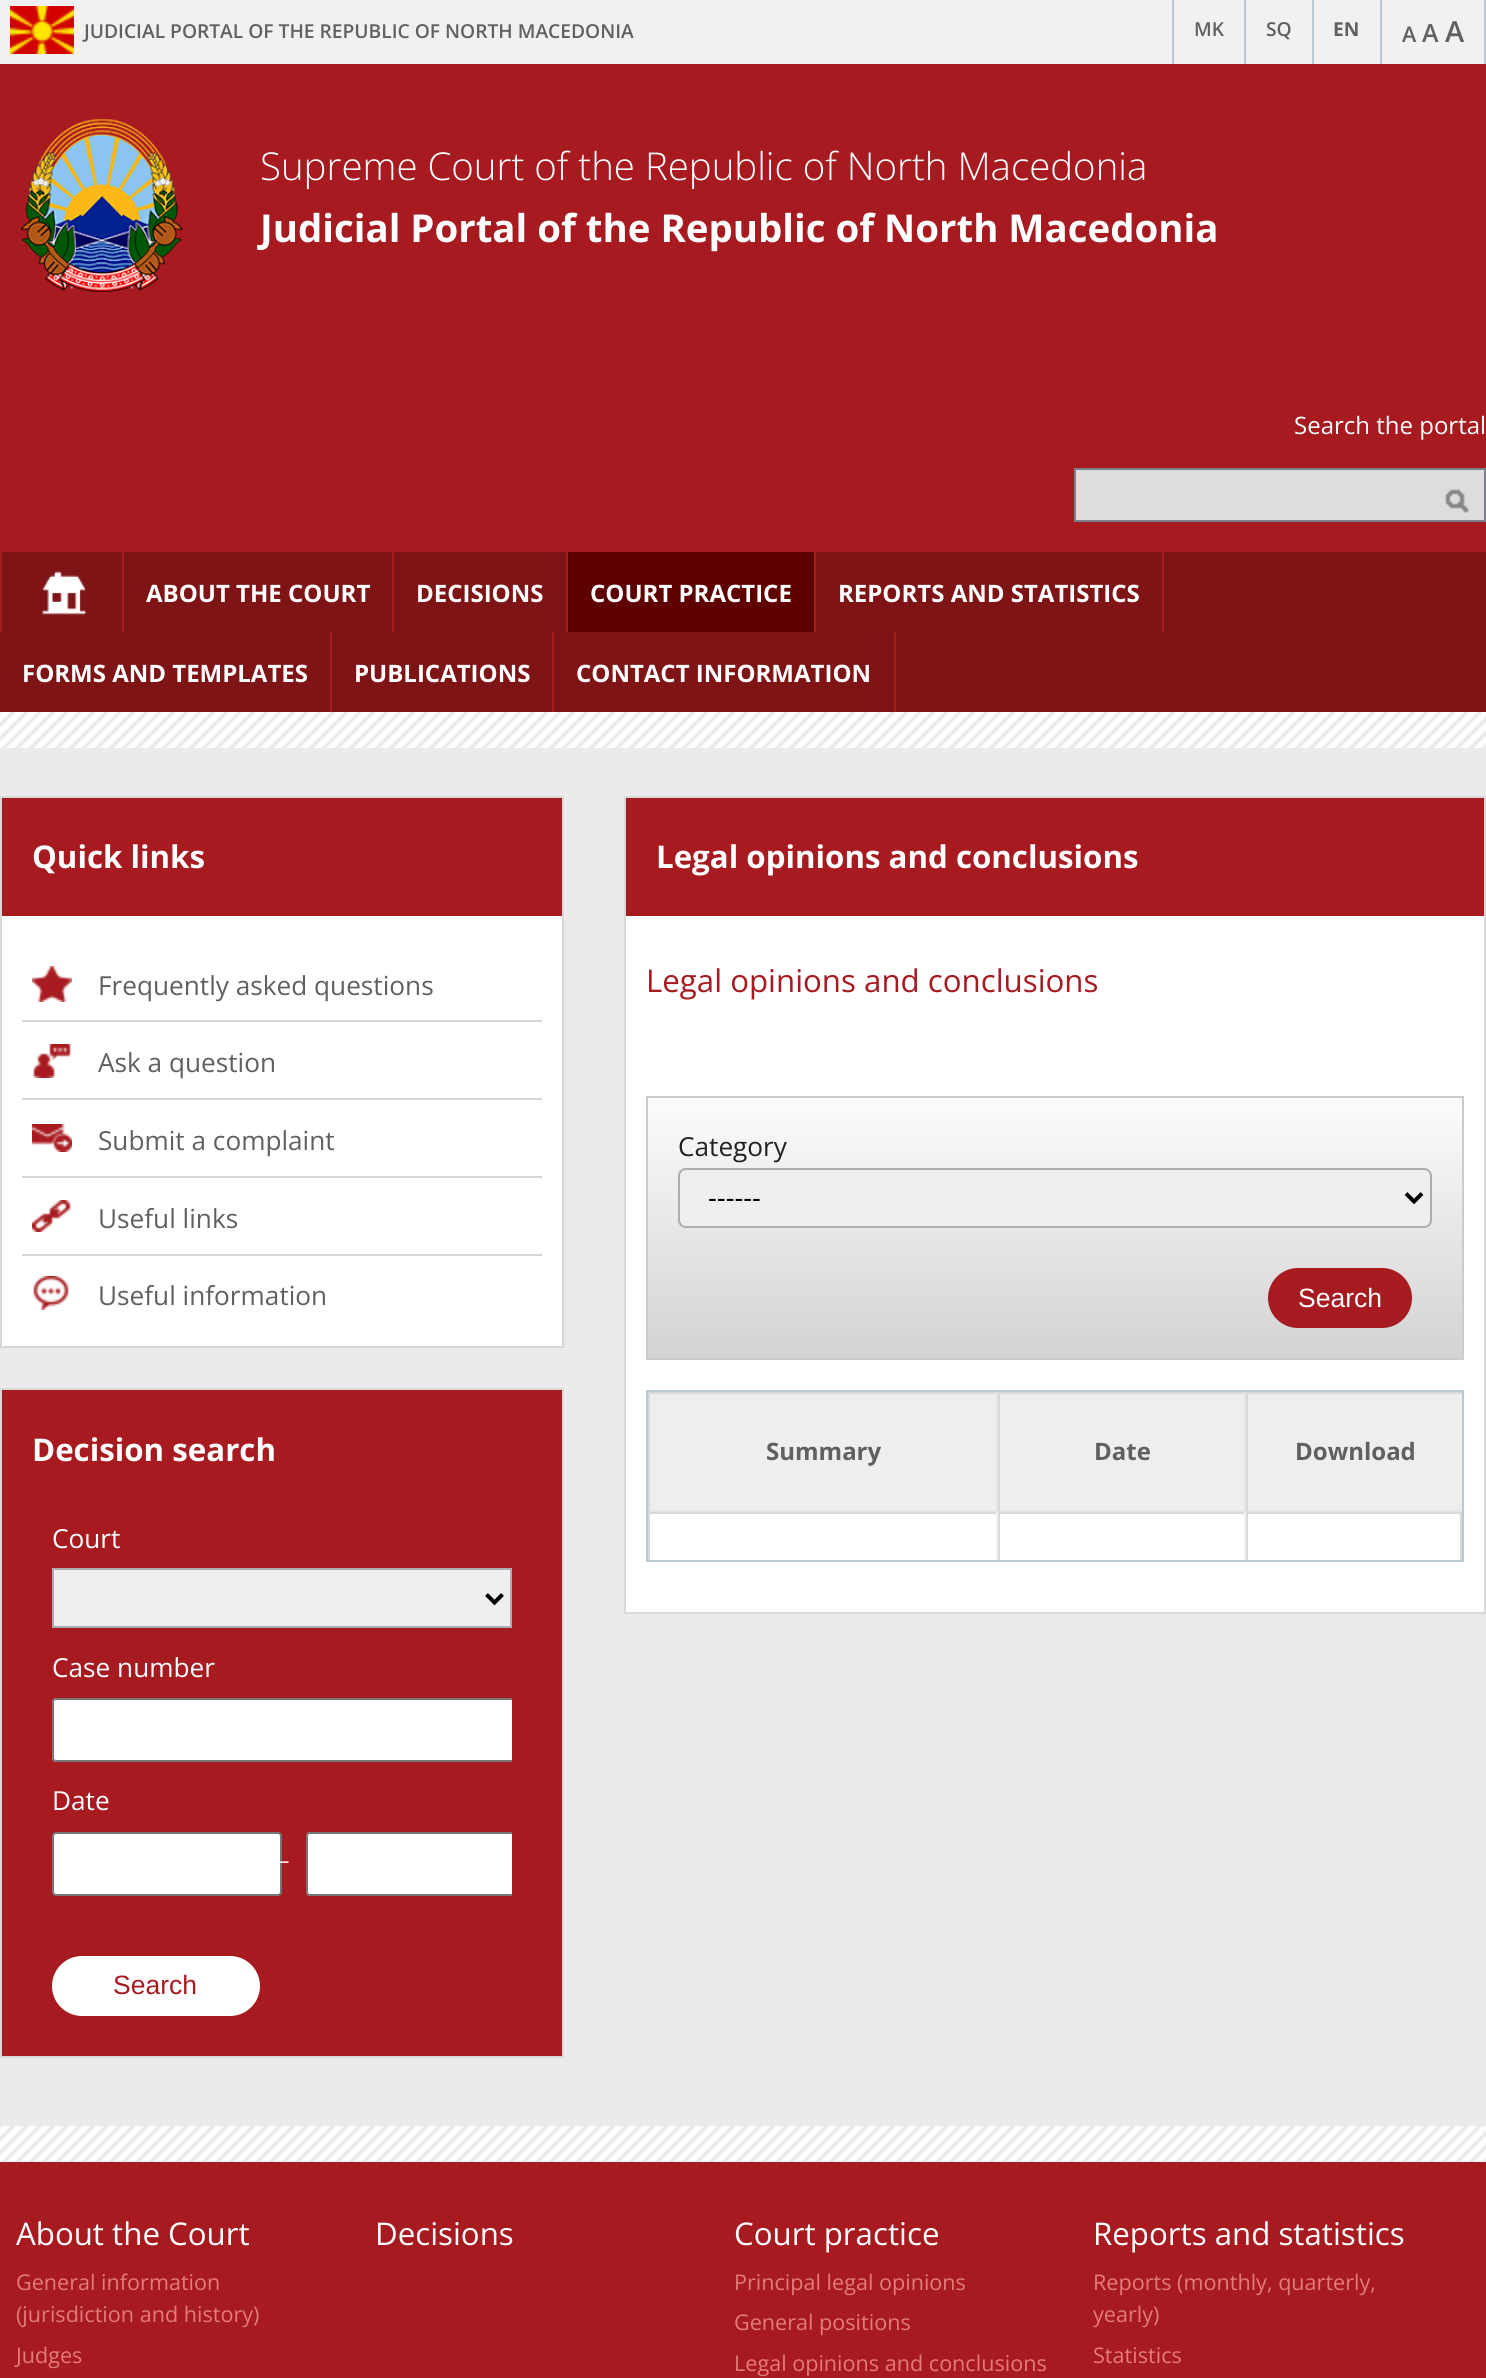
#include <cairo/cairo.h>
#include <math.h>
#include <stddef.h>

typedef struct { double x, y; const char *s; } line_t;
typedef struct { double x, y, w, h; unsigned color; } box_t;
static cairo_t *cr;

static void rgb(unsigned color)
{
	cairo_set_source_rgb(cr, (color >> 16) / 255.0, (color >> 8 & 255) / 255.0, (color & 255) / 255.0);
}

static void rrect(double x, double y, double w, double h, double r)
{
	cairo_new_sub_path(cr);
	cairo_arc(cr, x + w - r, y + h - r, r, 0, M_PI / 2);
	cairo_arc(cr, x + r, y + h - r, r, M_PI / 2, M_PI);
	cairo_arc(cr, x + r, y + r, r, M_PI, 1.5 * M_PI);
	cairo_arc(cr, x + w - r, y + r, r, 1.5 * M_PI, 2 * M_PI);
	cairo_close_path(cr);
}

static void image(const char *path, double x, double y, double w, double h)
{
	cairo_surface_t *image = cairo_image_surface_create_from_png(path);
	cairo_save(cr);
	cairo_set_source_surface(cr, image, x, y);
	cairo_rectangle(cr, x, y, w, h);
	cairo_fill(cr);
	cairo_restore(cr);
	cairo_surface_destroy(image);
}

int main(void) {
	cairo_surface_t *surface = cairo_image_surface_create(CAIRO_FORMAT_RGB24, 1486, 2378);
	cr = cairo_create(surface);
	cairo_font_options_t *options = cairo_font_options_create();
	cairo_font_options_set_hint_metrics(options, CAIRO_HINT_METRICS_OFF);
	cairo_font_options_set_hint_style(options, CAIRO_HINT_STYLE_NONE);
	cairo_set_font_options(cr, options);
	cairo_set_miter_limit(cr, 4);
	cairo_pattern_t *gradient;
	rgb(0xa71a20);
	cairo_paint(cr);
	rgb(0xf1f1f1);
	cairo_rectangle(cr, 0, 0, 1484, 64);
	cairo_fill(cr);
	image("img/1.png", 10, 6, 64, 48);
	{
		static const box_t items[] = {
			{1484, 0, 2, 64, 0xbac9d1},
			{1172, 0, 2, 64, 0xbac9d1},
			{1244, 0, 2, 64, 0xbac9d1},
			{1312, 0, 2, 64, 0xbac9d1},
			{1380, 0, 2, 64, 0xbac9d1},
		};
		for (size_t i = 0; i < sizeof items / sizeof *items; i++) {
			rgb(items[i].color);
			cairo_rectangle(cr, items[i].x, items[i].y, items[i].w, items[i].h);
			cairo_fill(cr);
		}
	}
	image("img/2.png", 20, 119, 163, 173);
	rgb(0xdddddd);
	cairo_rectangle(cr, 1075, 469, 410, 52);
	cairo_fill_preserve(cr);
	rgb(0x7a808c);
	cairo_stroke(cr);
	image("img/3.png", 1445, 489, 24, 24);
	{
		static const box_t items[] = {
			{0, 552, 1486, 160, 0x7e1416},
			{122, 552, 2, 80, 0xa71a20},
			{0, 552, 2, 80, 0xa71a20},
		};
		for (size_t i = 0; i < sizeof items / sizeof *items; i++) {
			rgb(items[i].color);
			cairo_rectangle(cr, items[i].x, items[i].y, items[i].w, items[i].h);
			cairo_fill(cr);
		}
	}
	image("img/4.png", 42, 571, 45, 44);
	{
		static const box_t items[] = {
			{392, 552, 2, 80, 0xa71a20},
			{566, 552, 2, 80, 0xa71a20},
			{814, 552, 2, 80, 0xa71a20},
			{568, 552, 246, 80, 0x5f0000},
			{1162, 552, 2, 80, 0xa71a20},
			{330, 632, 2, 80, 0xa71a20},
			{552, 632, 2, 80, 0xa71a20},
			{894, 632, 2, 80, 0xa71a20},
			{0, 748, 1486, 1378, 0xeceaeb},
		};
		for (size_t i = 0; i < sizeof items / sizeof *items; i++) {
			rgb(items[i].color);
			cairo_rectangle(cr, items[i].x, items[i].y, items[i].w, items[i].h);
			cairo_fill(cr);
		}
	}
	image("img/5.png", 0, 712, 1486, 36);
	{
		static const box_t items[] = {
			{2, 798, 560, 118, 0xa71a20},
			{0, 796, 564, 2, 0xd8d8d8},
			{562, 796, 2, 552, 0xd8d8d8},
			{0, 796, 2, 120, 0xd8d8d8},
			{2, 916, 560, 430, 0xffffff},
			{0, 1346, 564, 2, 0xd8d8d8},
			{0, 916, 2, 432, 0xd8d8d8},
			{22, 1020, 520, 2, 0xd8d8d8},
		};
		for (size_t i = 0; i < sizeof items / sizeof *items; i++) {
			rgb(items[i].color);
			cairo_rectangle(cr, items[i].x, items[i].y, items[i].w, items[i].h);
			cairo_fill(cr);
		}
	}
	image("img/6.png", 32, 966, 40, 36);
	cairo_rectangle(cr, 22, 1098, 520, 2);
	cairo_fill(cr);
	image("img/7.png", 33, 1044, 38, 34);
	cairo_rectangle(cr, 22, 1176, 520, 2);
	cairo_fill(cr);
	image("img/8.png", 32, 1124, 40, 28);
	cairo_rectangle(cr, 22, 1254, 520, 2);
	cairo_fill(cr);
	image("img/9.png", 32, 1200, 39, 32);
	image("img/10.png", 33, 1276, 36, 34);
	{
		static const box_t items[] = {
			{2, 1390, 560, 666, 0xa71a20},
			{0, 1388, 564, 2, 0xd8d8d8},
			{562, 1388, 2, 670, 0xd8d8d8},
			{0, 1388, 2, 122, 0xd8d8d8},
			{0, 2056, 564, 2, 0xd8d8d8},
			{0, 1510, 2, 548, 0xd8d8d8},
		};
		for (size_t i = 0; i < sizeof items / sizeof *items; i++) {
			rgb(items[i].color);
			cairo_rectangle(cr, items[i].x, items[i].y, items[i].w, items[i].h);
			cairo_fill(cr);
		}
	}
	rgb(0xefefef);
	cairo_rectangle(cr, 53, 1569, 458, 58);
	cairo_fill_preserve(cr);
	rgb(0xabadb3);
	cairo_stroke(cr);
	cairo_new_path(cr);
	cairo_move_to(cr, 486.5, 1594.5);
	cairo_line_to(cr, 494.5, 1602.5);
	cairo_line_to(cr, 502.5, 1594.5);
	rgb(0x000000);
	cairo_set_line_width(cr, 4);
	cairo_stroke(cr);
	rgb(0xffffff);
	cairo_new_path(cr);
	cairo_move_to(cr, 56, 1698);
	cairo_line_to(cr, 512, 1698);
	cairo_line_to(cr, 512, 1762);
	cairo_line_to(cr, 56, 1762);
	cairo_curve_to(cr, 54, 1762, 52, 1760, 52, 1758);
	cairo_line_to(cr, 52, 1702);
	cairo_curve_to(cr, 52, 1700, 54, 1698, 56, 1698);
	cairo_close_path(cr);
	cairo_fill(cr);
	cairo_save(cr);
	cairo_rectangle(cr, 52, 1698, 460, 64);
	cairo_clip(cr);
	rrect(53, 1699, 480, 62, 3);
	rgb(0x767676);
	cairo_set_line_width(cr, 2);
	cairo_stroke(cr);
	cairo_restore(cr);
	rrect(53, 1833, 228, 62, 3);
	cairo_fill_preserve(cr);
	rgb(0x767676);
	cairo_set_line_width(cr, 2);
	cairo_stroke(cr);
	rgb(0xffffff);
	cairo_new_path(cr);
	cairo_move_to(cr, 310, 1832);
	cairo_line_to(cr, 512, 1832);
	cairo_line_to(cr, 512, 1896);
	cairo_line_to(cr, 310, 1896);
	cairo_curve_to(cr, 308, 1896, 306, 1894, 306, 1892);
	cairo_line_to(cr, 306, 1836);
	cairo_curve_to(cr, 306, 1834, 308, 1832, 310, 1832);
	cairo_close_path(cr);
	cairo_fill(cr);
	cairo_save(cr);
	cairo_rectangle(cr, 52, 1832, 460, 64);
	cairo_clip(cr);
	rrect(307, 1833, 226, 62, 3);
	rgb(0x767676);
	cairo_stroke(cr);
	cairo_restore(cr);
	rrect(52, 1956, 208, 60, 30);
	cairo_fill(cr);
	{
		static const box_t items[] = {
			{626, 798, 858, 118, 0xa71a20},
			{624, 796, 862, 2, 0xd8d8d8},
			{1484, 796, 2, 818, 0xd8d8d8},
			{624, 796, 2, 120, 0xd8d8d8},
			{626, 916, 858, 696, 0xffffff},
			{624, 1612, 862, 2, 0xd8d8d8},
			{624, 916, 2, 698, 0xd8d8d8},
		};
		for (size_t i = 0; i < sizeof items / sizeof *items; i++) {
			rgb(items[i].color);
			cairo_rectangle(cr, items[i].x, items[i].y, items[i].w, items[i].h);
			cairo_fill(cr);
		}
	}
	gradient = cairo_pattern_create_linear(1055, 1098, 1055, 1358);
	cairo_pattern_add_color_stop_rgba(gradient, 0, 0.988, 0.988, 0.988, 1);
	cairo_pattern_add_color_stop_rgba(gradient, 1, 0.827, 0.827, 0.827, 1);
	cairo_set_source(cr, gradient);
	cairo_pattern_destroy(gradient);
	cairo_rectangle(cr, 648, 1098, 814, 260);
	cairo_fill(cr);
	cairo_rectangle(cr, 647, 1097, 816, 262);
	rgb(0xcbcbcb);
	cairo_stroke(cr);
	rgb(0xefefef);
	rrect(679, 1169, 752, 58, 7);
	cairo_fill_preserve(cr);
	rgb(0xabadb3);
	cairo_stroke(cr);
	cairo_new_path(cr);
	cairo_move_to(cr, 1406, 1193.5);
	cairo_line_to(cr, 1414, 1201.5);
	cairo_line_to(cr, 1422, 1193.5);
	rgb(0x000000);
	cairo_set_line_width(cr, 4);
	cairo_stroke(cr);
	rgb(0xa71a20);
	rrect(1268, 1268, 144, 60, 30);
	cairo_fill(cr);
	cairo_rectangle(cr, 647, 1391, 816, 170);
	rgb(0xbac9d1);
	cairo_set_line_width(cr, 2);
	cairo_stroke(cr);
	{
		static const box_t items[] = {
			{650, 1394, 346, 116, 0xeeeeed},
			{648, 1392, 814, 2, 0xd9d9d9},
			{996, 1392, 2, 120, 0xe1e5e6},
			{648, 1510, 350, 2, 0xe1e5e6},
			{648, 1392, 2, 120, 0xd9d9d9},
			{1000, 1394, 244, 116, 0xeeeeed},
			{1244, 1392, 2, 120, 0xe1e5e6},
			{998, 1510, 464, 2, 0xe1e5e6},
			{998, 1392, 2, 120, 0xd9d9d9},
			{1248, 1394, 214, 116, 0xeeeeed},
			{1246, 1392, 2, 120, 0xd9d9d9},
			{648, 1512, 814, 2, 0xd9d9d9},
			{996, 1512, 2, 48, 0xeef2f4},
			{648, 1512, 2, 48, 0xd9d9d9},
			{1244, 1512, 2, 48, 0xeef2f4},
			{998, 1512, 2, 48, 0xd9d9d9},
			{1460, 1512, 2, 48, 0xd9d9d9},
			{1246, 1512, 2, 48, 0xd9d9d9},
		};
		for (size_t i = 0; i < sizeof items / sizeof *items; i++) {
			rgb(items[i].color);
			cairo_rectangle(cr, items[i].x, items[i].y, items[i].w, items[i].h);
			cairo_fill(cr);
		}
	}
	image("img/5.png", 0, 2126, 1486, 36);
	cairo_select_font_face(cr, "Open Sans SemiBold", CAIRO_FONT_SLANT_NORMAL, CAIRO_FONT_WEIGHT_NORMAL);
	cairo_set_font_size(cr, 19.2);
	rgb(0x606060);
	{
		static const line_t items[] = {
			{84, 38, "JUDICIAL PORTAL OF THE REPUBLIC OF NORTH MACEDONIA"},
			{1194, 36, "MK"},
			{1266, 36, "SQ"},
		};
		for (size_t i = 0; i < sizeof items / sizeof *items; i++) {
			cairo_move_to(cr, items[i].x, items[i].y);
			cairo_show_text(cr, items[i].s);
		}
	}
	cairo_select_font_face(cr, "Open Sans", CAIRO_FONT_SLANT_NORMAL, CAIRO_FONT_WEIGHT_BOLD);
	cairo_move_to(cr, 1333, 36);
	cairo_show_text(cr, "EN");
	cairo_select_font_face(cr, "Open Sans SemiBold", CAIRO_FONT_SLANT_NORMAL, CAIRO_FONT_WEIGHT_NORMAL);
	cairo_set_font_size(cr, 21.6);
	cairo_move_to(cr, 1402, 42);
	cairo_show_text(cr, "A");
	cairo_set_font_size(cr, 25);
	cairo_move_to(cr, 1422, 42);
	cairo_show_text(cr, "A");
	cairo_set_font_size(cr, 29);
	cairo_move_to(cr, 1445, 42);
	cairo_show_text(cr, "A");
	cairo_select_font_face(cr, "Open Sans Light", CAIRO_FONT_SLANT_NORMAL, CAIRO_FONT_WEIGHT_NORMAL);
	cairo_set_font_size(cr, 38.4);
	rgb(0xffffff);
	cairo_move_to(cr, 260, 180);
	cairo_show_text(cr, "Supreme Court of the Republic of North Macedonia");
	cairo_select_font_face(cr, "Open Sans", CAIRO_FONT_SLANT_NORMAL, CAIRO_FONT_WEIGHT_BOLD);
	cairo_move_to(cr, 260, 242);
	cairo_show_text(cr, "Judicial Portal of the Republic of North Macedonia");
	cairo_select_font_face(cr, "Open Sans", CAIRO_FONT_SLANT_NORMAL, CAIRO_FONT_WEIGHT_NORMAL);
	cairo_set_font_size(cr, 24);
	cairo_move_to(cr, 1294, 434);
	cairo_show_text(cr, "Search the portal");
	cairo_select_font_face(cr, "Open Sans", CAIRO_FONT_SLANT_NORMAL, CAIRO_FONT_WEIGHT_BOLD);
	{
		static const line_t items[] = {
			{146, 602, "ABOUT THE COURT"},
			{416, 602, "DECISIONS"},
			{590, 602, "COURT PRACTICE"},
			{838, 602, "REPORTS AND STATISTICS"},
			{22, 682, "FORMS AND TEMPLATES"},
			{354, 682, "PUBLICATIONS"},
			{576, 682, "CONTACT INFORMATION"},
		};
		for (size_t i = 0; i < sizeof items / sizeof *items; i++) {
			cairo_move_to(cr, items[i].x, items[i].y);
			cairo_show_text(cr, items[i].s);
		}
	}
	cairo_set_font_size(cr, 31.25);
	cairo_move_to(cr, 32, 868);
	cairo_show_text(cr, "Quick links");
	cairo_select_font_face(cr, "Open Sans", CAIRO_FONT_SLANT_NORMAL, CAIRO_FONT_WEIGHT_NORMAL);
	cairo_set_font_size(cr, 26.2);
	rgb(0x606060);
	{
		static const line_t items[] = {
			{98, 995, "Frequently asked questions"},
			{98, 1072, "Ask a question"},
			{98, 1150, "Submit a complaint"},
			{98, 1228, "Useful links"},
			{98, 1305, "Useful information"},
		};
		for (size_t i = 0; i < sizeof items / sizeof *items; i++) {
			cairo_move_to(cr, items[i].x, items[i].y);
			cairo_show_text(cr, items[i].s);
		}
	}
	cairo_select_font_face(cr, "Open Sans", CAIRO_FONT_SLANT_NORMAL, CAIRO_FONT_WEIGHT_BOLD);
	cairo_set_font_size(cr, 31.25);
	rgb(0xffffff);
	cairo_move_to(cr, 32, 1461);
	cairo_show_text(cr, "Decision search");
	cairo_select_font_face(cr, "Open Sans", CAIRO_FONT_SLANT_NORMAL, CAIRO_FONT_WEIGHT_NORMAL);
	cairo_set_font_size(cr, 26.2);
	{
		static const line_t items[] = {
			{52, 1548, "Court"},
			{52, 1677, "Case number"},
			{52, 1810, "Date"},
			{277, 1859, "_"},
		};
		for (size_t i = 0; i < sizeof items / sizeof *items; i++) {
			cairo_move_to(cr, items[i].x, items[i].y);
			cairo_show_text(cr, items[i].s);
		}
	}
	cairo_select_font_face(cr, "Liberation Sans", CAIRO_FONT_SLANT_NORMAL, CAIRO_FONT_WEIGHT_NORMAL);
	cairo_set_font_size(cr, 26.5);
	rgb(0xa71a20);
	cairo_move_to(cr, 113, 1994);
	cairo_show_text(cr, "Search");
	cairo_select_font_face(cr, "Open Sans", CAIRO_FONT_SLANT_NORMAL, CAIRO_FONT_WEIGHT_BOLD);
	cairo_set_font_size(cr, 31.25);
	rgb(0xffffff);
	cairo_move_to(cr, 656, 868);
	cairo_show_text(cr, "Legal opinions and conclusions");
	cairo_select_font_face(cr, "Open Sans", CAIRO_FONT_SLANT_NORMAL, CAIRO_FONT_WEIGHT_NORMAL);
	rgb(0xa71a20);
	cairo_move_to(cr, 646, 992);
	cairo_show_text(cr, "Legal opinions and conclusions");
	cairo_set_font_size(cr, 26.2);
	rgb(0x222222);
	cairo_move_to(cr, 678, 1156);
	cairo_show_text(cr, "Category");
	cairo_select_font_face(cr, "Liberation Sans", CAIRO_FONT_SLANT_NORMAL, CAIRO_FONT_WEIGHT_NORMAL);
	cairo_set_font_size(cr, 26.5);
	rgb(0x000000);
	cairo_move_to(cr, 708, 1207);
	cairo_show_text(cr, "------");
	rgb(0xffffff);
	cairo_move_to(cr, 1298, 1307);
	cairo_show_text(cr, "Search");
	cairo_select_font_face(cr, "Open Sans", CAIRO_FONT_SLANT_NORMAL, CAIRO_FONT_WEIGHT_BOLD);
	cairo_set_font_size(cr, 24);
	rgb(0x606060);
	{
		static const line_t items[] = {
			{766, 1460, "Summary"},
			{1094, 1460, "Date"},
			{1295, 1460, "Download"},
		};
		for (size_t i = 0; i < sizeof items / sizeof *items; i++) {
			cairo_move_to(cr, items[i].x, items[i].y);
			cairo_show_text(cr, items[i].s);
		}
	}
	cairo_select_font_face(cr, "Open Sans", CAIRO_FONT_SLANT_NORMAL, CAIRO_FONT_WEIGHT_NORMAL);
	cairo_set_font_size(cr, 31.25);
	rgb(0xffffff);
	cairo_move_to(cr, 16, 2245);
	cairo_show_text(cr, "About the Court");
	cairo_set_font_size(cr, 21.6);
	rgb(0xe47a7c);
	{
		static const line_t items[] = {
			{16, 2290, "General information"},
			{16, 2322, "(jurisdiction and history)"},
			{16, 2363, "Judges"},
		};
		for (size_t i = 0; i < sizeof items / sizeof *items; i++) {
			cairo_move_to(cr, items[i].x, items[i].y);
			cairo_show_text(cr, items[i].s);
		}
	}
	cairo_set_font_size(cr, 31.25);
	rgb(0xffffff);
	cairo_move_to(cr, 375, 2245);
	cairo_show_text(cr, "Decisions");
	cairo_move_to(cr, 734, 2245);
	cairo_show_text(cr, "Court practice");
	cairo_set_font_size(cr, 21.6);
	rgb(0xe47a7c);
	{
		static const line_t items[] = {
			{734, 2290, "Principal legal opinions"},
			{734, 2330, "General positions"},
			{734, 2371, "Legal opinions and conclusions"},
		};
		for (size_t i = 0; i < sizeof items / sizeof *items; i++) {
			cairo_move_to(cr, items[i].x, items[i].y);
			cairo_show_text(cr, items[i].s);
		}
	}
	cairo_set_font_size(cr, 31.25);
	rgb(0xffffff);
	cairo_move_to(cr, 1093, 2245);
	cairo_show_text(cr, "Reports and statistics");
	cairo_set_font_size(cr, 21.6);
	rgb(0xe47a7c);
	{
		static const line_t items[] = {
			{1093, 2290, "Reports (monthly, quarterly,"},
			{1093, 2322, "yearly)"},
			{1093, 2363, "Statistics"},
		};
		for (size_t i = 0; i < sizeof items / sizeof *items; i++) {
			cairo_move_to(cr, items[i].x, items[i].y);
			cairo_show_text(cr, items[i].s);
		}
	}
	cairo_surface_write_to_png(surface, "page.png");
	cairo_font_options_destroy(options);
	cairo_destroy(cr);
	cairo_surface_destroy(surface);
	return 0;
}
